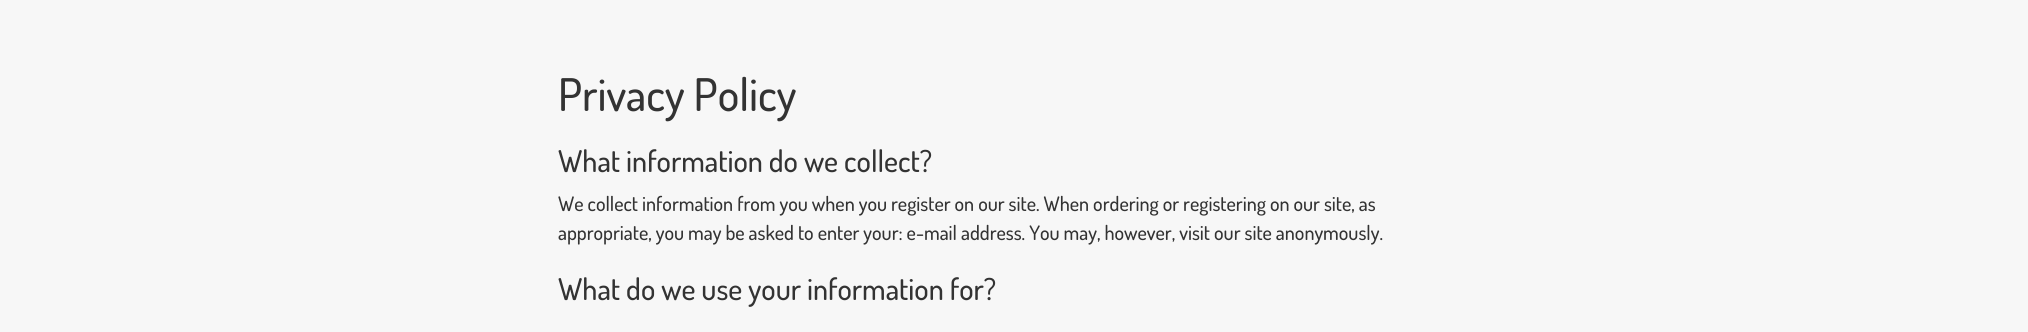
#include <cairo/cairo.h>
#include <math.h>
#include <stddef.h>

static cairo_t *cr;

static void rgb(unsigned color)
{
	cairo_set_source_rgb(cr, (color >> 16) / 255.0, (color >> 8 & 255) / 255.0, (color & 255) / 255.0);
}

int main(void) {
	cairo_surface_t *surface = cairo_image_surface_create(CAIRO_FORMAT_RGB24, 2028, 332);
	cr = cairo_create(surface);
	cairo_font_options_t *options = cairo_font_options_create();
	cairo_font_options_set_hint_metrics(options, CAIRO_HINT_METRICS_OFF);
	cairo_font_options_set_hint_style(options, CAIRO_HINT_STYLE_NONE);
	cairo_set_font_options(cr, options);
	cairo_set_miter_limit(cr, 4);
	rgb(0xf7f7f7);
	cairo_paint(cr);
	cairo_select_font_face(cr, "Dosis Medium", CAIRO_FONT_SLANT_NORMAL, CAIRO_FONT_WEIGHT_NORMAL);
	cairo_set_font_size(cr, 45);
	rgb(0x333333);
	cairo_move_to(cr, 558, 111);
	cairo_show_text(cr, "Privacy Policy");
	cairo_set_font_size(cr, 30);
	cairo_move_to(cr, 558, 172);
	cairo_show_text(cr, "What information do we collect?");
	cairo_set_font_size(cr, 20);
	cairo_move_to(cr, 558, 211);
	cairo_show_text(cr, "We collect information from you when you register on our site. When ordering or registering on our site, as");
	cairo_move_to(cr, 558, 240);
	cairo_show_text(cr, "appropriate, you may be asked to enter your: e-mail address. You may, however, visit our site anonymously.");
	cairo_set_font_size(cr, 30);
	cairo_move_to(cr, 558, 300);
	cairo_show_text(cr, "What do we use your information for?");
	cairo_surface_write_to_png(surface, "page.png");
	cairo_font_options_destroy(options);
	cairo_destroy(cr);
	cairo_surface_destroy(surface);
	return 0;
}
